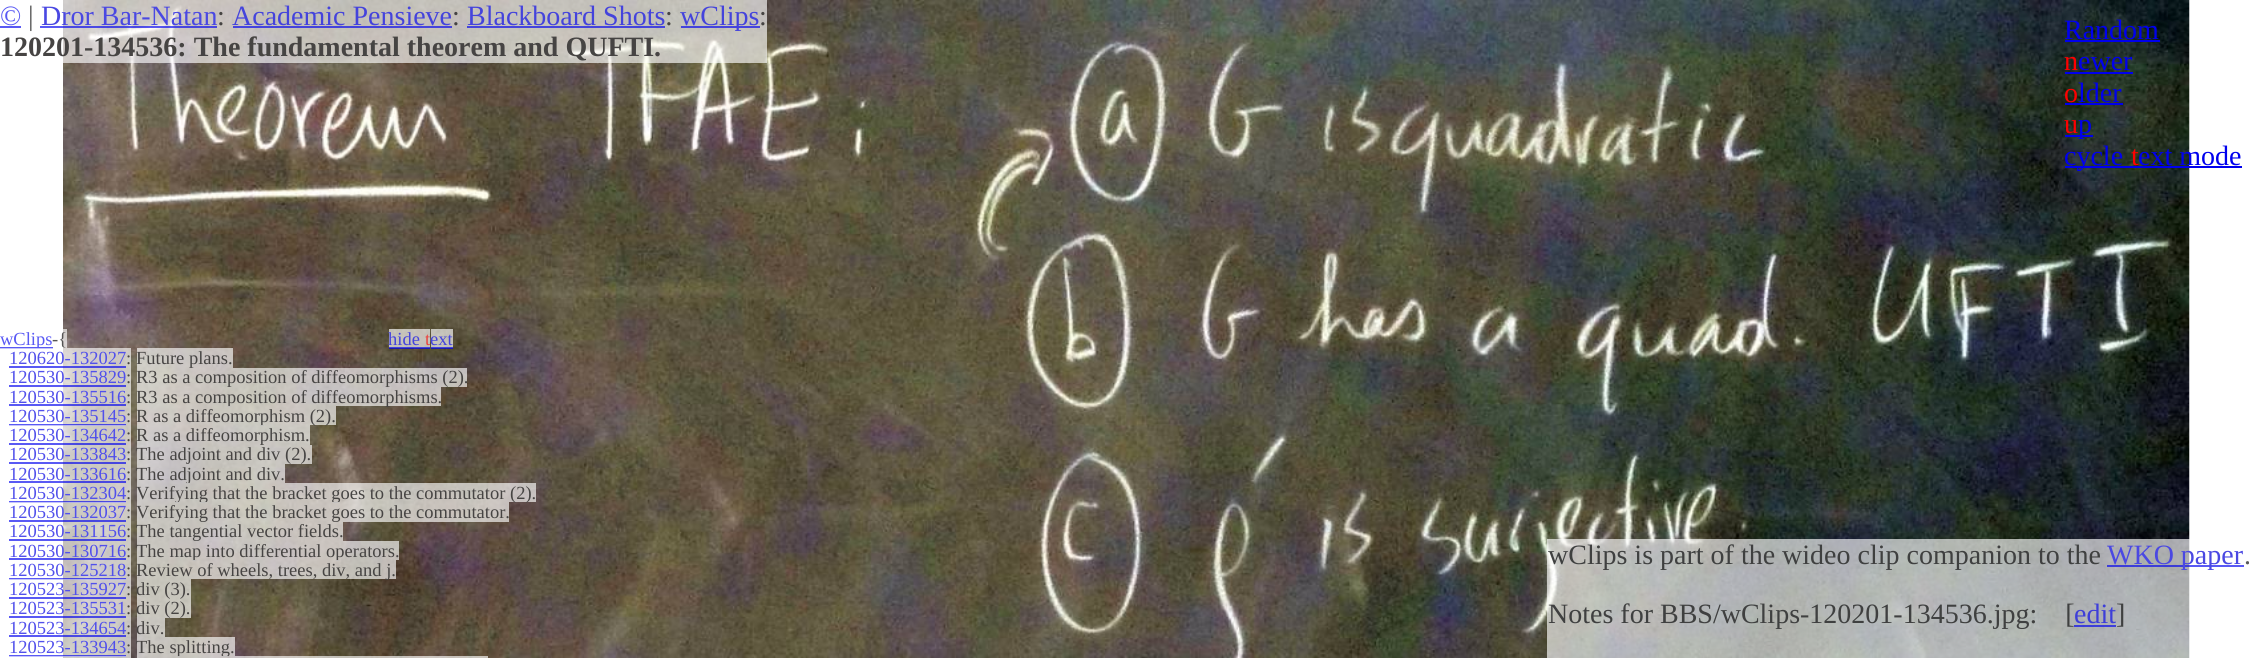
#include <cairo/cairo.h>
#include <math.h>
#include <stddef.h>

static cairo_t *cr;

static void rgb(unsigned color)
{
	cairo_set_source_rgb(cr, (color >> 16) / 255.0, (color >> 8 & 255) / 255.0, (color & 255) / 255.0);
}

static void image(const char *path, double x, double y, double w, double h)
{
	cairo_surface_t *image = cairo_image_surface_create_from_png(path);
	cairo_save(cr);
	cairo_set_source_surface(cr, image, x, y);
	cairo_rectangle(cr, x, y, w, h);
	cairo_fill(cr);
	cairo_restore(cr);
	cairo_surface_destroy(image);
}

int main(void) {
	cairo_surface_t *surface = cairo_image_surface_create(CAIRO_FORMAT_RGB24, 2249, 658);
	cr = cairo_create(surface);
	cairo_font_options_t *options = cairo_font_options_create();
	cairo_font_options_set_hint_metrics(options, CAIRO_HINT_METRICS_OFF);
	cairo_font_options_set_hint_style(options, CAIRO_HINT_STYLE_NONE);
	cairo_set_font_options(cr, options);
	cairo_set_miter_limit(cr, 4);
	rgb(0xffffff);
	cairo_paint(cr);
	image("img/1.png", 63, 0, 2127, 658);
	cairo_set_source_rgba(cr, 1, 1, 1, 0.65);
	cairo_rectangle(cr, 63, 0, 704, 63);
	cairo_fill(cr);
	rgb(0x5959f4);
	cairo_rectangle(cr, 0, 26, 21, 2);
	cairo_fill(cr);
	cairo_set_source_rgba(cr, 0, 0, 0.933, 0.65);
	cairo_rectangle(cr, 40, 26, 177, 2);
	cairo_fill(cr);
	cairo_rectangle(cr, 233, 26, 219, 2);
	cairo_fill(cr);
	cairo_rectangle(cr, 467, 26, 198, 2);
	cairo_fill(cr);
	cairo_rectangle(cr, 681, 26, 79, 2);
	cairo_fill(cr);
	rgb(0x0000ee);
	cairo_rectangle(cr, 2065, 40, 95, 2);
	cairo_fill(cr);
	cairo_rectangle(cr, 2065, 72, 68, 2);
	cairo_fill(cr);
	cairo_rectangle(cr, 2065, 103, 58, 2);
	cairo_fill(cr);
	cairo_rectangle(cr, 2065, 135, 28, 2);
	cairo_fill(cr);
	cairo_rectangle(cr, 2065, 166, 177, 2);
	cairo_fill(cr);
	rgb(0x5959f4);
	cairo_rectangle(cr, 0, 347, 53, 2);
	cairo_fill(cr);
	cairo_set_source_rgba(cr, 1, 1, 1, 0.65);
	cairo_rectangle(cr, 63, 329, 4, 19);
	cairo_fill(cr);
	cairo_rectangle(cr, 389, 329, 36, 19);
	cairo_fill(cr);
	cairo_rectangle(cr, 425, 329, 5, 19);
	cairo_fill(cr);
	cairo_set_source_rgba(cr, 0, 0, 0.933, 0.65);
	cairo_rectangle(cr, 389, 347, 36, 2);
	cairo_fill(cr);
	cairo_rectangle(cr, 425, 347, 5, 2);
	cairo_fill(cr);
	cairo_set_source_rgba(cr, 1, 1, 1, 0.65);
	cairo_rectangle(cr, 431, 329, 22, 19);
	cairo_fill(cr);
	cairo_set_source_rgba(cr, 0, 0, 0.933, 0.65);
	cairo_rectangle(cr, 431, 347, 22, 2);
	cairo_fill(cr);
	cairo_set_source_rgba(cr, 1, 1, 1, 0.65);
	cairo_rectangle(cr, 137, 348, 96, 20);
	cairo_fill(cr);
	cairo_rectangle(cr, 63, 368, 68, 19);
	cairo_fill(cr);
	cairo_set_source_rgba(cr, 0, 0, 0.933, 0.65);
	cairo_rectangle(cr, 9, 385, 117, 2);
	cairo_fill(cr);
	cairo_set_source_rgba(cr, 1, 1, 1, 0.65);
	cairo_rectangle(cr, 137, 368, 330, 19);
	cairo_fill(cr);
	cairo_rectangle(cr, 63, 387, 68, 19);
	cairo_fill(cr);
	cairo_set_source_rgba(cr, 0, 0, 0.933, 0.65);
	cairo_rectangle(cr, 9, 404, 117, 2);
	cairo_fill(cr);
	cairo_set_source_rgba(cr, 1, 1, 1, 0.65);
	cairo_rectangle(cr, 137, 387, 304, 19);
	cairo_fill(cr);
	cairo_rectangle(cr, 63, 406, 68, 19);
	cairo_fill(cr);
	cairo_set_source_rgba(cr, 0, 0, 0.933, 0.65);
	cairo_rectangle(cr, 9, 424, 117, 2);
	cairo_fill(cr);
	cairo_set_source_rgba(cr, 1, 1, 1, 0.65);
	cairo_rectangle(cr, 9, 425, 122, 20);
	cairo_fill(cr);
	cairo_set_source_rgba(cr, 0, 0, 0.933, 0.65);
	cairo_rectangle(cr, 9, 443, 117, 2);
	cairo_fill(cr);
	cairo_set_source_rgba(cr, 1, 1, 1, 0.65);
	cairo_rectangle(cr, 63, 445, 68, 19);
	cairo_fill(cr);
	cairo_set_source_rgba(cr, 0, 0, 0.933, 0.65);
	cairo_rectangle(cr, 9, 462, 117, 2);
	cairo_fill(cr);
	cairo_set_source_rgba(cr, 1, 1, 1, 0.65);
	cairo_rectangle(cr, 137, 445, 175, 19);
	cairo_fill(cr);
	cairo_rectangle(cr, 63, 464, 68, 19);
	cairo_fill(cr);
	cairo_set_source_rgba(cr, 0, 0, 0.933, 0.65);
	cairo_rectangle(cr, 9, 481, 117, 2);
	cairo_fill(cr);
	cairo_set_source_rgba(cr, 1, 1, 1, 0.65);
	cairo_rectangle(cr, 137, 464, 148, 19);
	cairo_fill(cr);
	cairo_rectangle(cr, 63, 483, 68, 19);
	cairo_fill(cr);
	cairo_set_source_rgba(cr, 0, 0, 0.933, 0.65);
	cairo_rectangle(cr, 9, 501, 117, 2);
	cairo_fill(cr);
	cairo_set_source_rgba(cr, 1, 1, 1, 0.65);
	cairo_rectangle(cr, 9, 502, 122, 20);
	cairo_fill(cr);
	cairo_set_source_rgba(cr, 0, 0, 0.933, 0.65);
	cairo_rectangle(cr, 9, 520, 117, 2);
	cairo_fill(cr);
	cairo_set_source_rgba(cr, 1, 1, 1, 0.65);
	cairo_rectangle(cr, 63, 522, 68, 19);
	cairo_fill(cr);
	cairo_set_source_rgba(cr, 0, 0, 0.933, 0.65);
	cairo_rectangle(cr, 9, 539, 117, 2);
	cairo_fill(cr);
	cairo_set_source_rgba(cr, 1, 1, 1, 0.65);
	cairo_rectangle(cr, 137, 522, 206, 19);
	cairo_fill(cr);
	cairo_rectangle(cr, 63, 541, 68, 19);
	cairo_fill(cr);
	cairo_set_source_rgba(cr, 0, 0, 0.933, 0.65);
	cairo_rectangle(cr, 9, 558, 117, 2);
	cairo_fill(cr);
	cairo_set_source_rgba(cr, 1, 1, 1, 0.65);
	cairo_rectangle(cr, 137, 541, 262, 19);
	cairo_fill(cr);
	cairo_rectangle(cr, 63, 560, 68, 19);
	cairo_fill(cr);
	cairo_set_source_rgba(cr, 0, 0, 0.933, 0.65);
	cairo_rectangle(cr, 9, 578, 117, 2);
	cairo_fill(cr);
	cairo_set_source_rgba(cr, 1, 1, 1, 0.65);
	cairo_rectangle(cr, 9, 579, 122, 20);
	cairo_fill(cr);
	cairo_set_source_rgba(cr, 0, 0, 0.933, 0.65);
	cairo_rectangle(cr, 9, 597, 117, 2);
	cairo_fill(cr);
	cairo_set_source_rgba(cr, 1, 1, 1, 0.65);
	cairo_rectangle(cr, 63, 599, 68, 19);
	cairo_fill(cr);
	cairo_set_source_rgba(cr, 0, 0, 0.933, 0.65);
	cairo_rectangle(cr, 9, 616, 117, 2);
	cairo_fill(cr);
	cairo_set_source_rgba(cr, 1, 1, 1, 0.65);
	cairo_rectangle(cr, 137, 599, 54, 19);
	cairo_fill(cr);
	cairo_rectangle(cr, 63, 618, 68, 19);
	cairo_fill(cr);
	cairo_set_source_rgba(cr, 0, 0, 0.933, 0.65);
	cairo_rectangle(cr, 9, 635, 117, 2);
	cairo_fill(cr);
	cairo_set_source_rgba(cr, 1, 1, 1, 0.65);
	cairo_rectangle(cr, 137, 618, 28, 19);
	cairo_fill(cr);
	cairo_rectangle(cr, 63, 637, 68, 19);
	cairo_fill(cr);
	cairo_set_source_rgba(cr, 0, 0, 0.933, 0.65);
	cairo_rectangle(cr, 9, 655, 117, 2);
	cairo_fill(cr);
	cairo_set_source_rgba(cr, 1, 1, 1, 0.65);
	cairo_rectangle(cr, 137, 637, 98, 19);
	cairo_fill(cr);
	cairo_rectangle(cr, 9, 656, 122, 2);
	cairo_fill(cr);
	cairo_rectangle(cr, 1547, 539, 643, 119);
	cairo_fill(cr);
	cairo_set_source_rgba(cr, 0, 0, 0.933, 0.65);
	cairo_rectangle(cr, 2107, 565, 137, 2);
	cairo_fill(cr);
	cairo_rectangle(cr, 2074, 625, 42, 2);
	cairo_fill(cr);
	cairo_select_font_face(cr, "Liberation Serif", CAIRO_FONT_SLANT_NORMAL, CAIRO_FONT_WEIGHT_NORMAL);
	cairo_set_font_size(cr, 28);
	rgb(0x5959f4);
	cairo_move_to(cr, 0, 25);
	cairo_show_text(cr, "©");
	rgb(0x595959);
	cairo_move_to(cr, 28, 25);
	cairo_show_text(cr, "|");
	rgb(0x4a48e2);
	cairo_move_to(cr, 41, 25);
	cairo_show_text(cr, "Dror Bar-Natan");
	rgb(0x464443);
	cairo_move_to(cr, 217, 25);
	cairo_show_text(cr, ":");
	rgb(0x4443dc);
	cairo_move_to(cr, 232, 25);
	cairo_show_text(cr, "Academic Pensieve");
	rgb(0x464443);
	cairo_move_to(cr, 452, 25);
	cairo_show_text(cr, ":");
	rgb(0x4443dc);
	cairo_move_to(cr, 467, 25);
	cairo_show_text(cr, "Blackboard Shots");
	rgb(0x464443);
	cairo_move_to(cr, 665, 25);
	cairo_show_text(cr, ":");
	rgb(0x4443dc);
	cairo_move_to(cr, 680, 25);
	cairo_show_text(cr, "wClips");
	rgb(0x464443);
	cairo_move_to(cr, 759, 25);
	cairo_show_text(cr, ":");
	cairo_select_font_face(cr, "Liberation Serif", CAIRO_FONT_SLANT_NORMAL, CAIRO_FONT_WEIGHT_BOLD);
	cairo_move_to(cr, 0, 56);
	cairo_show_text(cr, "120201-134536: The fundamental theorem and QUFTI.");
	cairo_select_font_face(cr, "Liberation Serif", CAIRO_FONT_SLANT_NORMAL, CAIRO_FONT_WEIGHT_NORMAL);
	rgb(0x0000ee);
	cairo_move_to(cr, 2064, 39);
	cairo_show_text(cr, "Random");
	rgb(0xff0000);
	cairo_move_to(cr, 2064, 70);
	cairo_show_text(cr, "n");
	rgb(0x0000ee);
	cairo_move_to(cr, 2078, 70);
	cairo_show_text(cr, "ewer");
	rgb(0xff0000);
	cairo_move_to(cr, 2064, 102);
	cairo_show_text(cr, "o");
	rgb(0x0000ee);
	cairo_move_to(cr, 2078, 102);
	cairo_show_text(cr, "lder");
	rgb(0xff0000);
	cairo_move_to(cr, 2064, 133);
	cairo_show_text(cr, "u");
	rgb(0x0000ee);
	cairo_move_to(cr, 2078, 133);
	cairo_show_text(cr, "p");
	cairo_move_to(cr, 2064, 165);
	cairo_show_text(cr, "cycle");
	rgb(0xff0000);
	cairo_move_to(cr, 2131, 165);
	cairo_show_text(cr, "t");
	rgb(0x0000ee);
	cairo_move_to(cr, 2138, 165);
	cairo_show_text(cr, "ext mode");
	cairo_set_font_size(cr, 18.5);
	rgb(0x5959f4);
	cairo_move_to(cr, 0, 345);
	cairo_show_text(cr, "wClips");
	rgb(0x545353);
	cairo_move_to(cr, 52, 345);
	cairo_show_text(cr, "-{");
	rgb(0x4443dc);
	cairo_move_to(cr, 388, 345);
	cairo_show_text(cr, "hide");
	rgb(0xea4340);
	cairo_move_to(cr, 425, 345);
	cairo_show_text(cr, "t");
	rgb(0x4443dc);
	cairo_move_to(cr, 430, 345);
	cairo_show_text(cr, "ext");
	cairo_set_source_rgba(cr, 1, 1, 1, 0.65);
	cairo_rectangle(cr, 0, 348, 131, 20);
	cairo_fill(cr);
	rgb(0x5150eb);
	cairo_move_to(cr, 9, 364);
	cairo_show_text(cr, "120620-132027");
	cairo_set_source_rgba(cr, 0, 0, 0.933, 0.65);
	cairo_rectangle(cr, 9, 366, 117, 2);
	cairo_fill(cr);
	rgb(0x464443);
	cairo_move_to(cr, 126, 364);
	cairo_show_text(cr, ":");
	cairo_move_to(cr, 136, 364);
	cairo_show_text(cr, "Future plans.");
	rgb(0x5150eb);
	cairo_move_to(cr, 9, 383);
	cairo_show_text(cr, "120530-135829");
	rgb(0x464443);
	cairo_move_to(cr, 126, 383);
	cairo_show_text(cr, ":");
	cairo_move_to(cr, 136, 383);
	cairo_show_text(cr, "R3 as a composition of diffeomorphisms (2).");
	rgb(0x5150eb);
	cairo_move_to(cr, 9, 403);
	cairo_show_text(cr, "120530-135516");
	rgb(0x464443);
	cairo_move_to(cr, 126, 403);
	cairo_show_text(cr, ":");
	cairo_move_to(cr, 136, 403);
	cairo_show_text(cr, "R3 as a composition of diffeomorphisms.");
	rgb(0x5150eb);
	cairo_move_to(cr, 9, 422);
	cairo_show_text(cr, "120530-135145");
	rgb(0x464443);
	cairo_move_to(cr, 126, 422);
	cairo_show_text(cr, ":");
	cairo_set_source_rgba(cr, 1, 1, 1, 0.65);
	cairo_rectangle(cr, 137, 406, 199, 19);
	cairo_fill(cr);
	rgb(0x464443);
	cairo_move_to(cr, 136, 422);
	cairo_show_text(cr, "R as a diffeomorphism (2).");
	rgb(0x5150eb);
	cairo_move_to(cr, 9, 441);
	cairo_show_text(cr, "120530-134642");
	rgb(0x464443);
	cairo_move_to(cr, 126, 441);
	cairo_show_text(cr, ":");
	cairo_set_source_rgba(cr, 1, 1, 1, 0.65);
	cairo_rectangle(cr, 137, 425, 173, 20);
	cairo_fill(cr);
	rgb(0x464443);
	cairo_move_to(cr, 136, 441);
	cairo_show_text(cr, "R as a diffeomorphism.");
	rgb(0x5150eb);
	cairo_move_to(cr, 9, 460);
	cairo_show_text(cr, "120530-133843");
	rgb(0x464443);
	cairo_move_to(cr, 126, 460);
	cairo_show_text(cr, ":");
	cairo_move_to(cr, 136, 460);
	cairo_show_text(cr, "The adjoint and div (2).");
	rgb(0x5150eb);
	cairo_move_to(cr, 9, 480);
	cairo_show_text(cr, "120530-133616");
	rgb(0x464443);
	cairo_move_to(cr, 126, 480);
	cairo_show_text(cr, ":");
	cairo_move_to(cr, 136, 480);
	cairo_show_text(cr, "The adjoint and div.");
	rgb(0x5150eb);
	cairo_move_to(cr, 9, 499);
	cairo_show_text(cr, "120530-132304");
	rgb(0x464443);
	cairo_move_to(cr, 126, 499);
	cairo_show_text(cr, ":");
	cairo_set_source_rgba(cr, 1, 1, 1, 0.65);
	cairo_rectangle(cr, 137, 483, 399, 19);
	cairo_fill(cr);
	rgb(0x464443);
	cairo_move_to(cr, 136, 499);
	cairo_show_text(cr, "Verifying that the bracket goes to the commutator (2).");
	rgb(0x5150eb);
	cairo_move_to(cr, 9, 518);
	cairo_show_text(cr, "120530-132037");
	rgb(0x464443);
	cairo_move_to(cr, 126, 518);
	cairo_show_text(cr, ":");
	cairo_set_source_rgba(cr, 1, 1, 1, 0.65);
	cairo_rectangle(cr, 137, 502, 372, 20);
	cairo_fill(cr);
	rgb(0x464443);
	cairo_move_to(cr, 136, 518);
	cairo_show_text(cr, "Verifying that the bracket goes to the commutator.");
	rgb(0x5150eb);
	cairo_move_to(cr, 9, 537);
	cairo_show_text(cr, "120530-131156");
	rgb(0x464443);
	cairo_move_to(cr, 126, 537);
	cairo_show_text(cr, ":");
	cairo_move_to(cr, 136, 537);
	cairo_show_text(cr, "The tangential vector fields.");
	rgb(0x5150eb);
	cairo_move_to(cr, 9, 557);
	cairo_show_text(cr, "120530-130716");
	rgb(0x464443);
	cairo_move_to(cr, 126, 557);
	cairo_show_text(cr, ":");
	cairo_move_to(cr, 136, 557);
	cairo_show_text(cr, "The map into differential operators.");
	rgb(0x5150eb);
	cairo_move_to(cr, 9, 576);
	cairo_show_text(cr, "120530-125218");
	rgb(0x464443);
	cairo_move_to(cr, 126, 576);
	cairo_show_text(cr, ":");
	cairo_set_source_rgba(cr, 1, 1, 1, 0.65);
	cairo_rectangle(cr, 137, 560, 259, 19);
	cairo_fill(cr);
	rgb(0x464443);
	cairo_move_to(cr, 136, 576);
	cairo_show_text(cr, "Review of wheels, trees, div, and j.");
	rgb(0x5150eb);
	cairo_move_to(cr, 9, 595);
	cairo_show_text(cr, "120523-135927");
	rgb(0x464443);
	cairo_move_to(cr, 126, 595);
	cairo_show_text(cr, ":");
	cairo_set_source_rgba(cr, 1, 1, 1, 0.65);
	cairo_rectangle(cr, 137, 579, 54, 20);
	cairo_fill(cr);
	rgb(0x464443);
	cairo_move_to(cr, 136, 595);
	cairo_show_text(cr, "div (3).");
	rgb(0x5150eb);
	cairo_move_to(cr, 9, 614);
	cairo_show_text(cr, "120523-135531");
	rgb(0x464443);
	cairo_move_to(cr, 126, 614);
	cairo_show_text(cr, ":");
	cairo_move_to(cr, 136, 614);
	cairo_show_text(cr, "div (2).");
	rgb(0x5150eb);
	cairo_move_to(cr, 9, 634);
	cairo_show_text(cr, "120523-134654");
	rgb(0x464443);
	cairo_move_to(cr, 126, 634);
	cairo_show_text(cr, ":");
	cairo_move_to(cr, 136, 634);
	cairo_show_text(cr, "div.");
	rgb(0x5150eb);
	cairo_move_to(cr, 9, 653);
	cairo_show_text(cr, "120523-133943");
	rgb(0x464443);
	cairo_move_to(cr, 126, 653);
	cairo_show_text(cr, ":");
	cairo_move_to(cr, 136, 653);
	cairo_show_text(cr, "The splitting.");
	cairo_set_source_rgba(cr, 1, 1, 1, 0.65);
	cairo_rectangle(cr, 137, 656, 351, 2);
	cairo_fill(cr);
	cairo_set_font_size(cr, 28);
	rgb(0x3f4040);
	cairo_move_to(cr, 1548, 564);
	cairo_show_text(cr, "wClips is part of the wideo clip companion to the");
	rgb(0x4a48e2);
	cairo_move_to(cr, 2107, 564);
	cairo_show_text(cr, "WKO paper");
	rgb(0x595959);
	cairo_move_to(cr, 2244, 564);
	cairo_show_text(cr, ".");
	rgb(0x3f4040);
	cairo_move_to(cr, 1548, 623);
	cairo_show_text(cr, "Notes for BBS/wClips-120201-134536.jpg:    [");
	rgb(0x3d3ed9);
	cairo_move_to(cr, 2074, 623);
	cairo_show_text(cr, "edit");
	rgb(0x3f4040);
	cairo_move_to(cr, 2116, 623);
	cairo_show_text(cr, "]");
	cairo_surface_write_to_png(surface, "page.png");
	cairo_font_options_destroy(options);
	cairo_destroy(cr);
	cairo_surface_destroy(surface);
	return 0;
}
